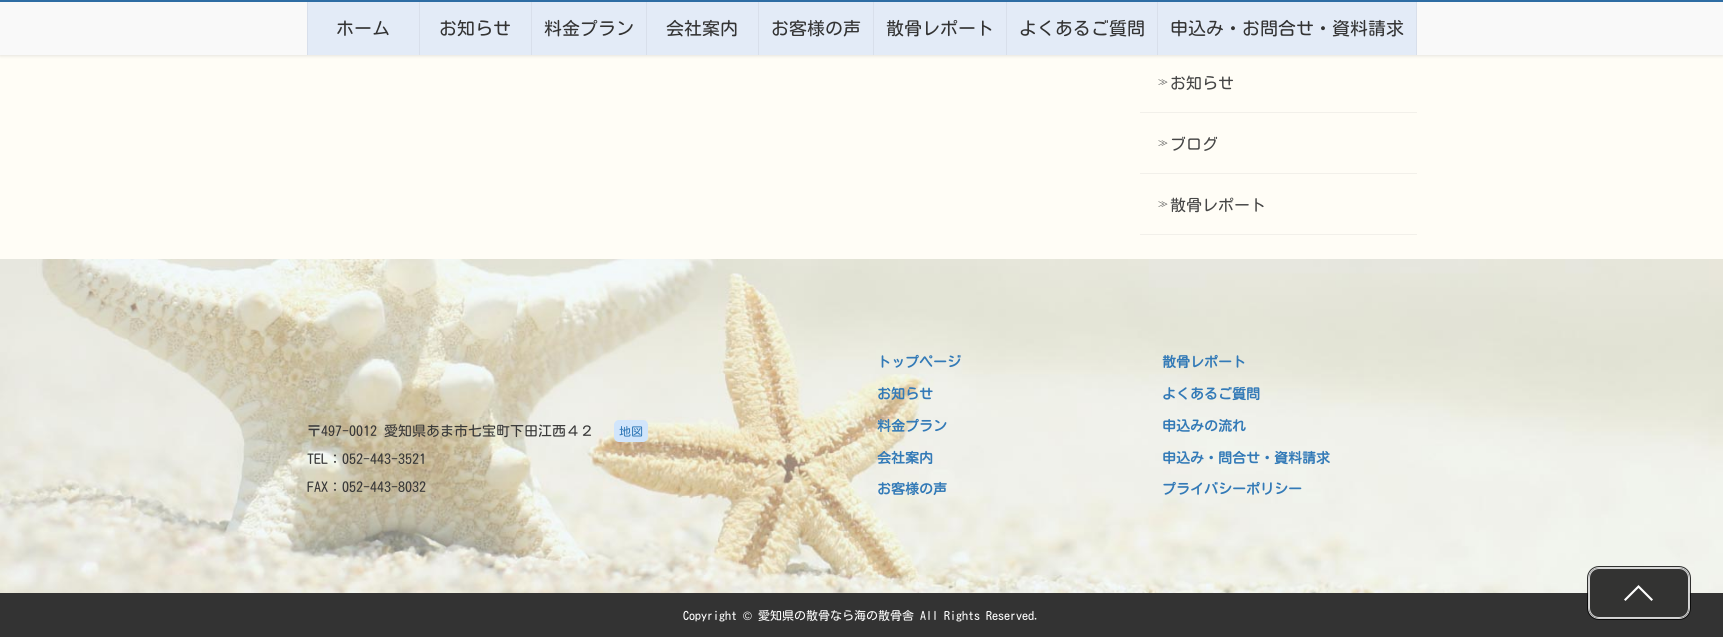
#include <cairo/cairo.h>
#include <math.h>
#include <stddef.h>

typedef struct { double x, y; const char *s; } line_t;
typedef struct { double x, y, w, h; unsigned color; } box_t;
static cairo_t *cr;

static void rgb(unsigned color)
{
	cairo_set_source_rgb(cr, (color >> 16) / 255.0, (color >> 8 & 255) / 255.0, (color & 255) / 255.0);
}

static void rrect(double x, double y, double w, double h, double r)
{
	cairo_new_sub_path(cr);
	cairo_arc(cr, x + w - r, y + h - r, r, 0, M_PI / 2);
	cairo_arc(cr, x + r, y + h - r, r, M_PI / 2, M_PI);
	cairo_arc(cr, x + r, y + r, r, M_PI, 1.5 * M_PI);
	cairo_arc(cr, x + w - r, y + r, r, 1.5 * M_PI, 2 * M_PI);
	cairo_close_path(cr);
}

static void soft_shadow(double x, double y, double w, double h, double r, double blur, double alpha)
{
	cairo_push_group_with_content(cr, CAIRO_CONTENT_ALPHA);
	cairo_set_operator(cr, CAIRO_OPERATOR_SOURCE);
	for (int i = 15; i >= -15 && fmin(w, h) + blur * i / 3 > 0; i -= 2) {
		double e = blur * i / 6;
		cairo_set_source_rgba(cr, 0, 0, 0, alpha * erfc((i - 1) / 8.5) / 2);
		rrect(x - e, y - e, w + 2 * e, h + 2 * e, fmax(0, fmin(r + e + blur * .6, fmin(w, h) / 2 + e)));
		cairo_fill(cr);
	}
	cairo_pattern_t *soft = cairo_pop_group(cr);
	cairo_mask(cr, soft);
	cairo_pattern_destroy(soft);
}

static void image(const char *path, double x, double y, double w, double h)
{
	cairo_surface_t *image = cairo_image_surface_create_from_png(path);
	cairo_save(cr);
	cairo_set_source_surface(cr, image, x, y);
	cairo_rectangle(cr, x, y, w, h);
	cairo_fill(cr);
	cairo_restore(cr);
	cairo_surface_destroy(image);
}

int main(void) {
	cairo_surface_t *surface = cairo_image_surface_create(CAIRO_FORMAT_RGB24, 1723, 637);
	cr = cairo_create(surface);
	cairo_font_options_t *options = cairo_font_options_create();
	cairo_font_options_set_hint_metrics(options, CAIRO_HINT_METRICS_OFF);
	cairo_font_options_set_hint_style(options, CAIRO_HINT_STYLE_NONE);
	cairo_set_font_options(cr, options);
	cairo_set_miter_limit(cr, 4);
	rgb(0xfffdf6);
	cairo_paint(cr);
	rgb(0x000000);
	soft_shadow(0, 1, 1723, 55, 0, 1.5, 0.1);
	{
		static const box_t items[] = {
			{0, 2, 1723, 53, 0xf9f9f9},
			{0, 0, 1723, 2, 0x2e6da4},
			{308, 2, 111, 53, 0xe3ebf7},
			{307, 2, 1, 53, 0xd8dfeb},
			{420, 2, 111, 53, 0xe3ebf7},
			{419, 2, 1, 53, 0xd8dfeb},
			{532, 2, 114, 53, 0xe3ebf7},
			{531, 2, 1, 53, 0xd8dfeb},
			{647, 2, 111, 53, 0xe3ebf7},
			{646, 2, 1, 53, 0xd8dfeb},
			{759, 2, 114, 53, 0xe3ebf7},
			{758, 2, 1, 53, 0xd8dfeb},
			{874, 2, 132, 53, 0xe3ebf7},
			{873, 2, 1, 53, 0xd8dfeb},
			{1007, 2, 150, 53, 0xe3ebf7},
			{1006, 2, 1, 53, 0xd8dfeb},
			{1158, 2, 258, 53, 0xe3ebf7},
			{1416, 2, 1, 53, 0xd8dfeb},
			{1157, 2, 1, 53, 0xd8dfeb},
			{1140, 112, 277, 1, 0xf2f0ea},
			{1140, 173, 277, 1, 0xf2f0ea},
			{1140, 234, 277, 1, 0xf2f0ea},
		};
		for (size_t i = 0; i < sizeof items / sizeof *items; i++) {
			rgb(items[i].color);
			cairo_rectangle(cr, items[i].x, items[i].y, items[i].w, items[i].h);
			cairo_fill(cr);
		}
	}
	image("img/1.png", 0, 259, 1723, 334);
	rgb(0xd1e5fb);
	rrect(614, 420, 34, 22, 5);
	cairo_fill(cr);
	rgb(0x333333);
	cairo_rectangle(cr, 0, 593, 1723, 44);
	cairo_fill(cr);
	rrect(1588, 567, 102, 52, 11);
	cairo_set_source_rgba(cr, 0, 0, 0, 0.8);
	cairo_stroke(cr);
	rrect(1588.5, 567.5, 101, 51, 10.5);
	cairo_set_source_rgba(cr, 1, 1, 1, 0.8);
	cairo_set_line_width(cr, 1);
	cairo_stroke(cr);
	rgb(0x333332);
	rrect(1589, 568, 100, 50, 10);
	cairo_fill(cr);
	rgb(0xffffff);
	cairo_new_path(cr);
	cairo_move_to(cr, 1653, 599.5);
	cairo_line_to(cr, 1651.5, 601);
	cairo_line_to(cr, 1638.5, 588);
	cairo_line_to(cr, 1625.5, 601);
	cairo_line_to(cr, 1624, 599.5);
	cairo_line_to(cr, 1638.5, 585);
	cairo_close_path(cr);
	cairo_fill(cr);
	rrect(1589.5, 568.5, 99, 49, 9.5);
	cairo_set_source_rgba(cr, 1, 1, 1, 0.8);
	cairo_stroke(cr);
	cairo_select_font_face(cr, "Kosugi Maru", CAIRO_FONT_SLANT_NORMAL, CAIRO_FONT_WEIGHT_NORMAL);
	cairo_set_font_size(cr, 18);
	rgb(0x333333);
	{
		static const line_t items[] = {
			{336, 35, "ホーム"},
			{439, 35, "お知らせ"},
			{544, 35, "料金プラン"},
			{666, 35, "会社案内"},
			{771, 35, "お客様の声"},
			{886, 35, "散骨レポート"},
			{1019, 35, "よくあるご質問"},
			{1170, 35, "申込み・お問合せ・資料請求"},
		};
		for (size_t i = 0; i < sizeof items / sizeof *items; i++) {
			cairo_move_to(cr, items[i].x, items[i].y);
			cairo_show_text(cr, items[i].s);
		}
	}
	cairo_select_font_face(cr, "WenQuanYi Zen Hei Medium", CAIRO_FONT_SLANT_NORMAL, CAIRO_FONT_WEIGHT_NORMAL);
	cairo_set_font_size(cr, 10);
	rgb(0x464646);
	cairo_move_to(cr, 1158, 85);
	cairo_show_text(cr, "≫");
	cairo_select_font_face(cr, "Kosugi Maru", CAIRO_FONT_SLANT_NORMAL, CAIRO_FONT_WEIGHT_NORMAL);
	cairo_set_font_size(cr, 16);
	cairo_move_to(cr, 1170, 89);
	cairo_show_text(cr, "お知らせ");
	cairo_select_font_face(cr, "WenQuanYi Zen Hei Medium", CAIRO_FONT_SLANT_NORMAL, CAIRO_FONT_WEIGHT_NORMAL);
	cairo_set_font_size(cr, 10);
	cairo_move_to(cr, 1158, 146);
	cairo_show_text(cr, "≫");
	cairo_select_font_face(cr, "Kosugi Maru", CAIRO_FONT_SLANT_NORMAL, CAIRO_FONT_WEIGHT_NORMAL);
	cairo_set_font_size(cr, 16);
	cairo_move_to(cr, 1170, 150);
	cairo_show_text(cr, "ブログ");
	cairo_select_font_face(cr, "WenQuanYi Zen Hei Medium", CAIRO_FONT_SLANT_NORMAL, CAIRO_FONT_WEIGHT_NORMAL);
	cairo_set_font_size(cr, 10);
	cairo_move_to(cr, 1158, 207);
	cairo_show_text(cr, "≫");
	cairo_select_font_face(cr, "Kosugi Maru", CAIRO_FONT_SLANT_NORMAL, CAIRO_FONT_WEIGHT_NORMAL);
	cairo_set_font_size(cr, 16);
	cairo_move_to(cr, 1170, 211);
	cairo_show_text(cr, "散骨レポート");
	cairo_set_font_size(cr, 14);
	rgb(0x393939);
	cairo_move_to(cr, 307, 436);
	cairo_show_text(cr, "〒497-0012 愛知県あま市七宝町下田江西４２");
	cairo_set_font_size(cr, 12);
	rgb(0x337ab7);
	cairo_move_to(cr, 619, 436);
	cairo_show_text(cr, "地図");
	cairo_set_font_size(cr, 14);
	rgb(0x393939);
	cairo_move_to(cr, 307, 464);
	cairo_show_text(cr, "TEL：052-443-3521");
	cairo_move_to(cr, 307, 492);
	cairo_show_text(cr, "FAX：052-443-8032");
	cairo_select_font_face(cr, "Kosugi Maru", CAIRO_FONT_SLANT_NORMAL, CAIRO_FONT_WEIGHT_BOLD);
	rgb(0x337ab7);
	{
		static const line_t items[] = {
			{877, 367, "トップページ"},
			{877, 399, "お知らせ"},
			{877, 431, "料金プラン"},
			{877, 463, "会社案内"},
			{877, 494, "お客様の声"},
			{1162, 367, "散骨レポート"},
			{1162, 399, "よくあるご質問"},
			{1162, 431, "申込みの流れ"},
			{1162, 463, "申込み・問合せ・資料請求"},
			{1162, 494, "プライバシーポリシー"},
		};
		for (size_t i = 0; i < sizeof items / sizeof *items; i++) {
			cairo_move_to(cr, items[i].x, items[i].y);
			cairo_show_text(cr, items[i].s);
		}
	}
	cairo_select_font_face(cr, "Kosugi Maru", CAIRO_FONT_SLANT_NORMAL, CAIRO_FONT_WEIGHT_NORMAL);
	cairo_set_font_size(cr, 12);
	rgb(0xffffff);
	cairo_move_to(cr, 683, 620);
	cairo_show_text(cr, "Copyright");
	cairo_select_font_face(cr, "Liberation Sans", CAIRO_FONT_SLANT_NORMAL, CAIRO_FONT_WEIGHT_NORMAL);
	cairo_move_to(cr, 743, 620);
	cairo_show_text(cr, "©");
	cairo_select_font_face(cr, "Kosugi Maru", CAIRO_FONT_SLANT_NORMAL, CAIRO_FONT_WEIGHT_NORMAL);
	cairo_move_to(cr, 758, 620);
	cairo_show_text(cr, "愛知県の散骨なら海の散骨舎 All Rights Reserved.");
	cairo_surface_write_to_png(surface, "page.png");
	cairo_font_options_destroy(options);
	cairo_destroy(cr);
	cairo_surface_destroy(surface);
	return 0;
}
